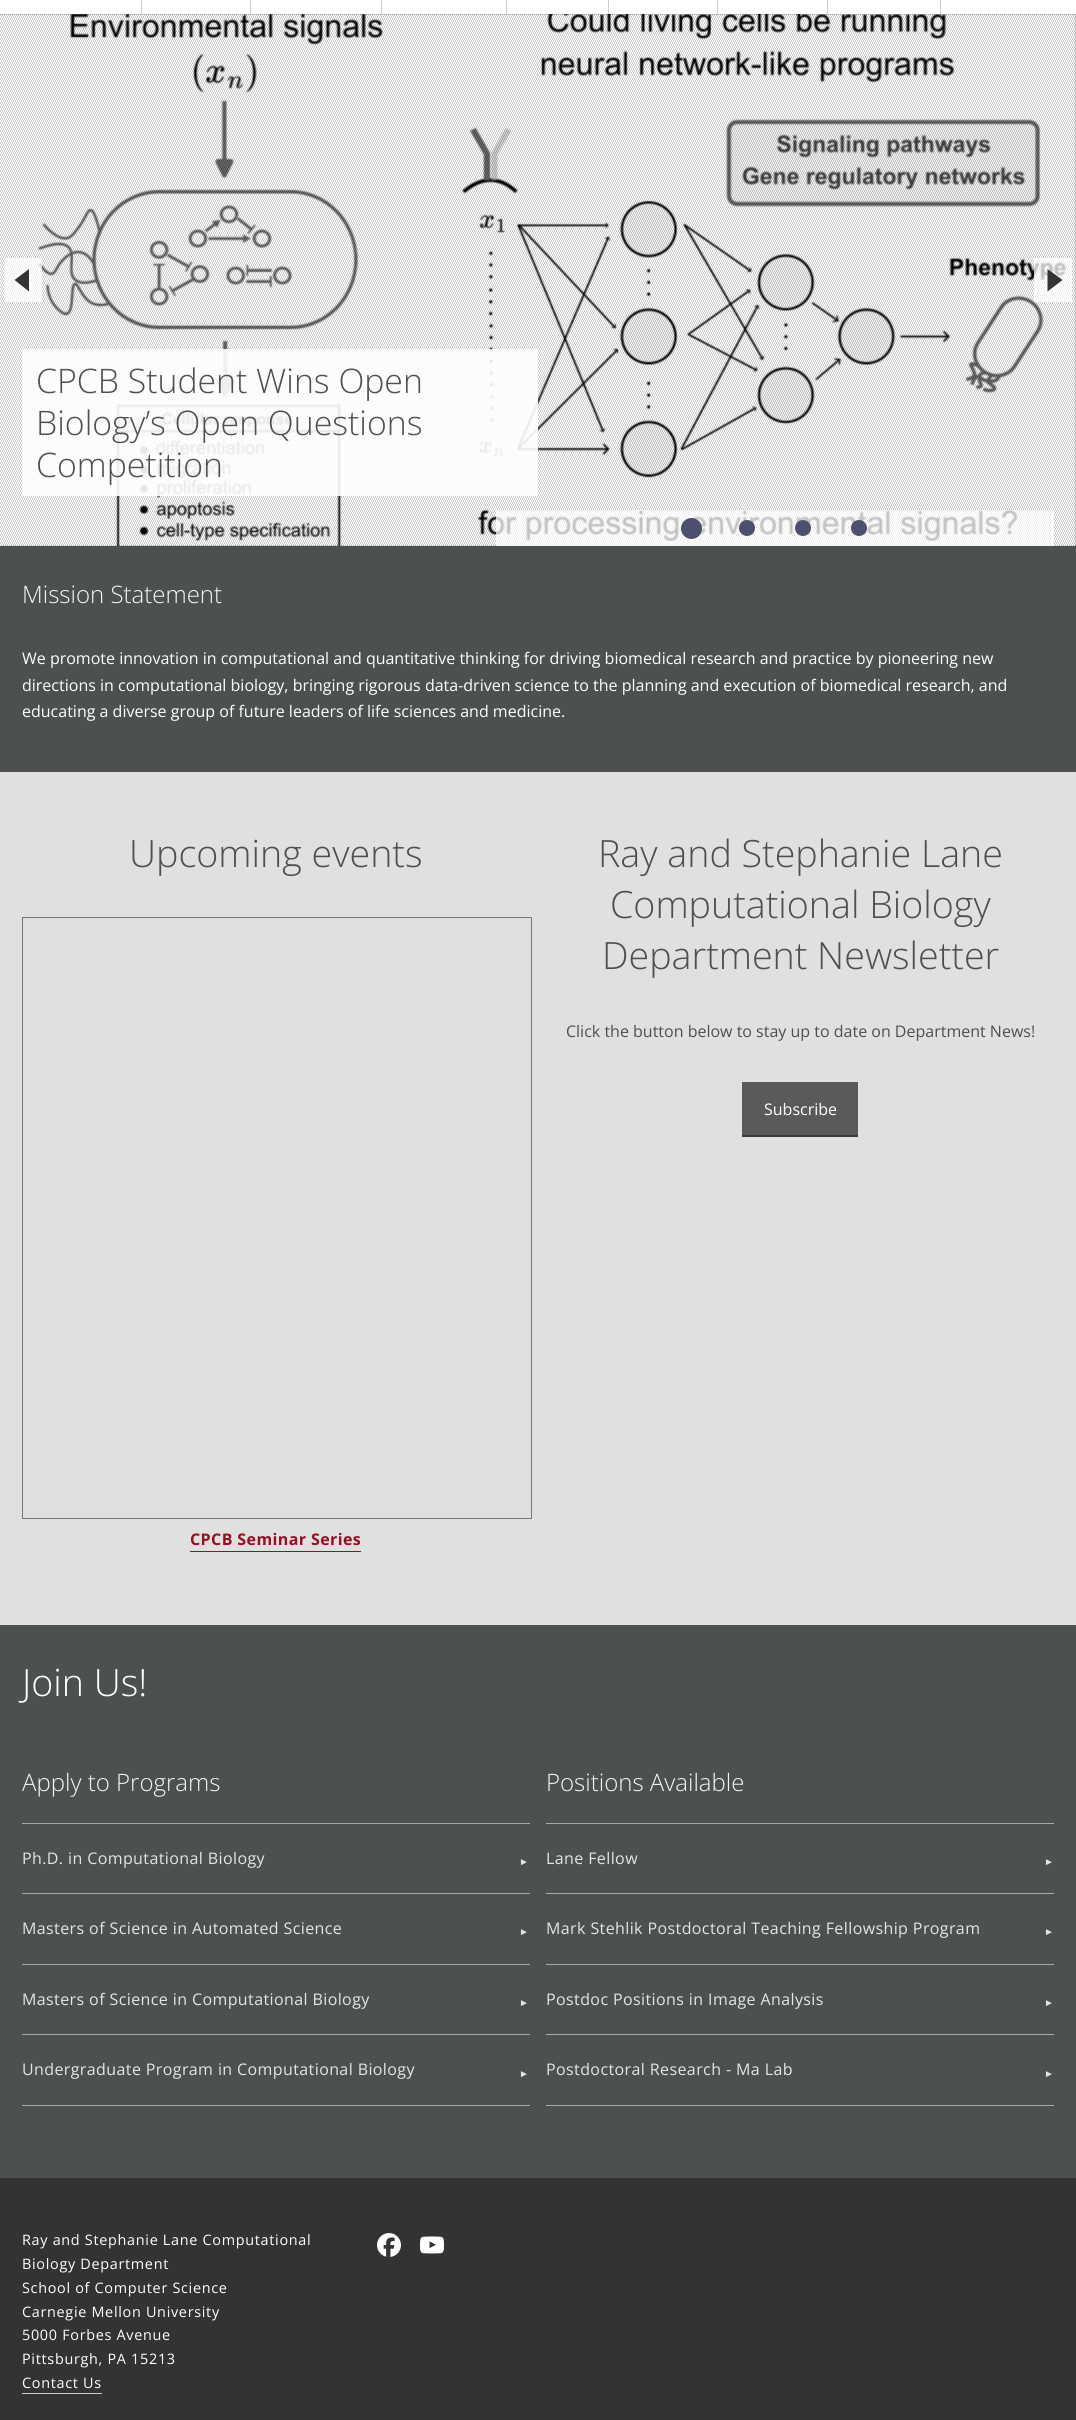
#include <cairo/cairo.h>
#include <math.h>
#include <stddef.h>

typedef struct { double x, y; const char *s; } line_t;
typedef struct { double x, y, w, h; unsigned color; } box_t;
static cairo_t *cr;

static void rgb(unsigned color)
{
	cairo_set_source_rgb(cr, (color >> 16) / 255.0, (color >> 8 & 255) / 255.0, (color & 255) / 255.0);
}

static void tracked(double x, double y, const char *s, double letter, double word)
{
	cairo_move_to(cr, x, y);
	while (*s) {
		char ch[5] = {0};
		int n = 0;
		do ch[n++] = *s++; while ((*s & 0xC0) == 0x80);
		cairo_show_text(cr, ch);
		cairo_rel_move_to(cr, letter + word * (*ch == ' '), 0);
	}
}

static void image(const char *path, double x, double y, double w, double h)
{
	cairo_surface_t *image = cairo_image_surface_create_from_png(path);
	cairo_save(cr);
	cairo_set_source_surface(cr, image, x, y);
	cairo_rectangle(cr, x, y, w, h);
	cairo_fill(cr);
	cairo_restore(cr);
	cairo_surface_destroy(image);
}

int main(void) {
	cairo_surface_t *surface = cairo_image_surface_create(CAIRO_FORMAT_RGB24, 1076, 2420);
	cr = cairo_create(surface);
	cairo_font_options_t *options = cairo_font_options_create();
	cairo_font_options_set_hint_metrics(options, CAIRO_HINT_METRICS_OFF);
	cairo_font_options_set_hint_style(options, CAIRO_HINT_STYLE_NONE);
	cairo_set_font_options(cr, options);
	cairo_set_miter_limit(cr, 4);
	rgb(0xffffff);
	cairo_paint(cr);
	{
		static const box_t items[] = {
			{141, 0, 1, 14, 0xcccccc},
			{250, 0, 1, 14, 0xcccccc},
			{381, 0, 1, 14, 0xcccccc},
			{506, 0, 1, 14, 0xcccccc},
			{608, 0, 1, 14, 0xcccccc},
			{717, 0, 1, 14, 0xcccccc},
			{827, 0, 1, 14, 0xcccccc},
			{940, 0, 1, 14, 0xcccccc},
			{0, 14, 1076, 532, 0x000000},
		};
		for (size_t i = 0; i < sizeof items / sizeof *items; i++) {
			rgb(items[i].color);
			cairo_rectangle(cr, items[i].x, items[i].y, items[i].w, items[i].h);
			cairo_fill(cr);
		}
	}
	image("img/1.png", 0, 14, 1076, 532);
	image("img/2.png", 0, 14, 1076, 532);
	cairo_set_source_rgba(cr, 1, 1, 1, 0.75);
	cairo_rectangle(cr, 4, 258, 38, 44);
	cairo_fill(cr);
	rgb(0x333333);
	cairo_new_path(cr);
	cairo_move_to(cr, 14.5, 280);
	cairo_line_to(cr, 29, 291.5);
	cairo_line_to(cr, 29, 269);
	cairo_close_path(cr);
	cairo_fill(cr);
	cairo_set_source_rgba(cr, 1, 1, 1, 0.75);
	cairo_rectangle(cr, 1034, 258, 38, 44);
	cairo_fill(cr);
	rgb(0x333333);
	cairo_new_path(cr);
	cairo_move_to(cr, 1062.5, 280);
	cairo_line_to(cr, 1047.5, 269);
	cairo_line_to(cr, 1047.5, 291.5);
	cairo_close_path(cr);
	cairo_fill(cr);
	cairo_set_source_rgba(cr, 1, 1, 1, 0.9);
	cairo_rectangle(cr, 22, 349, 516, 147);
	cairo_fill(cr);
	cairo_set_source_rgba(cr, 1, 1, 1, 0.75);
	cairo_rectangle(cr, 496, 510, 558, 36);
	cairo_fill(cr);
	rgb(0x4d506d);
	cairo_arc(cr, 691.5, 528.5, 10.5, 0, 2 * M_PI);
	cairo_fill(cr);
	cairo_arc(cr, 747, 528, 8, 0, 2 * M_PI);
	cairo_fill(cr);
	cairo_arc(cr, 803, 528, 8, 0, 2 * M_PI);
	cairo_fill(cr);
	cairo_arc(cr, 859, 528, 8, 0, 2 * M_PI);
	cairo_fill(cr);
	rgb(0x4d5051);
	cairo_rectangle(cr, 0, 546, 1076, 226);
	cairo_fill(cr);
	rgb(0xe0e0e0);
	cairo_rectangle(cr, 0, 772, 1076, 853);
	cairo_fill(cr);
	cairo_rectangle(cr, 22.5, 917.5, 509, 601);
	rgb(0x777777);
	cairo_set_line_width(cr, 1);
	cairo_stroke(cr);
	{
		static const box_t items[] = {
			{190, 1551, 171, 1, 0x941120},
			{742, 1082, 116, 53, 0x5a5a5a},
			{742, 1135, 116, 2, 0x3a3a3a},
			{0, 1625, 1076, 553, 0x4d5051},
			{22, 2105, 508, 1, 0xa6a8a8},
			{22, 1823, 508, 1, 0xa6a8a8},
			{22, 1893, 508, 1, 0xa6a8a8},
			{22, 1964, 508, 1, 0xa6a8a8},
			{22, 2034, 508, 1, 0xa6a8a8},
			{546, 2105, 508, 1, 0xa6a8a8},
			{546, 1823, 508, 1, 0xa6a8a8},
			{546, 1893, 508, 1, 0xa6a8a8},
			{546, 1964, 508, 1, 0xa6a8a8},
			{546, 2034, 508, 1, 0xa6a8a8},
			{0, 2178, 1076, 242, 0x333333},
			{22, 2393, 80, 1, 0xcccccc},
		};
		for (size_t i = 0; i < sizeof items / sizeof *items; i++) {
			rgb(items[i].color);
			cairo_rectangle(cr, items[i].x, items[i].y, items[i].w, items[i].h);
			cairo_fill(cr);
		}
	}
	image("img/3.png", 377, 2233, 24, 24);
	image("img/4.png", 420, 2236, 24, 18);
	cairo_select_font_face(cr, "Open Sans Light", CAIRO_FONT_SLANT_NORMAL, CAIRO_FONT_WEIGHT_NORMAL);
	cairo_set_font_size(cr, 33.8);
	rgb(0x4d5051);
	{
		static const line_t items[] = {
			{36, 393, "CPCB Student Wins Open"},
			{36, 435, "Biology’s Open Questions"},
			{36, 477, "Competition"},
		};
		for (size_t i = 0; i < sizeof items / sizeof *items; i++) {
			cairo_move_to(cr, items[i].x, items[i].y);
			cairo_show_text(cr, items[i].s);
		}
	}
	cairo_set_font_size(cr, 24);
	rgb(0xf6f6f6);
	cairo_move_to(cr, 22, 603);
	cairo_show_text(cr, "Mission Statement");
	cairo_select_font_face(cr, "Open Sans", CAIRO_FONT_SLANT_NORMAL, CAIRO_FONT_WEIGHT_NORMAL);
	cairo_set_font_size(cr, 16);
	rgb(0xffffff);
	{
		static const line_t items[] = {
			{22, 664, "We promote innovation in computational and quantitative thinking for driving biomedical research and practice by pioneering new"},
			{22, 691, "directions in computational biology, bringing rigorous data-driven science to the planning and execution of biomedical research, and"},
			{22, 717, "educating a diverse group of future leaders of life sciences and medicine."},
		};
		for (size_t i = 0; i < sizeof items / sizeof *items; i++) {
			cairo_move_to(cr, items[i].x, items[i].y);
			cairo_show_text(cr, items[i].s);
		}
	}
	cairo_select_font_face(cr, "Open Sans Light", CAIRO_FONT_SLANT_NORMAL, CAIRO_FONT_WEIGHT_NORMAL);
	cairo_set_font_size(cr, 37.6);
	rgb(0x4d5051);
	cairo_move_to(cr, 129, 867);
	cairo_show_text(cr, "Upcoming events");
	cairo_select_font_face(cr, "Open Sans", CAIRO_FONT_SLANT_NORMAL, CAIRO_FONT_WEIGHT_BOLD);
	cairo_set_font_size(cr, 16);
	rgb(0x941120);
	tracked(190, 1545, "CPCB Seminar Series", 0.4, 0);
	cairo_select_font_face(cr, "Open Sans Light", CAIRO_FONT_SLANT_NORMAL, CAIRO_FONT_WEIGHT_NORMAL);
	cairo_set_font_size(cr, 37.6);
	rgb(0x4d5051);
	{
		static const line_t items[] = {
			{598, 867, "Ray and Stephanie Lane"},
			{610, 918, "Computational Biology"},
			{602, 969, "Department Newsletter"},
		};
		for (size_t i = 0; i < sizeof items / sizeof *items; i++) {
			cairo_move_to(cr, items[i].x, items[i].y);
			cairo_show_text(cr, items[i].s);
		}
	}
	cairo_select_font_face(cr, "Open Sans", CAIRO_FONT_SLANT_NORMAL, CAIRO_FONT_WEIGHT_NORMAL);
	cairo_set_font_size(cr, 16);
	cairo_move_to(cr, 566, 1037);
	cairo_show_text(cr, "Click the button below to stay up to date on Department News!");
	rgb(0xffffff);
	cairo_move_to(cr, 764, 1115);
	cairo_show_text(cr, "Subscribe");
	cairo_select_font_face(cr, "Open Sans Light", CAIRO_FONT_SLANT_NORMAL, CAIRO_FONT_WEIGHT_NORMAL);
	cairo_set_font_size(cr, 37.6);
	cairo_move_to(cr, 22, 1696);
	cairo_show_text(cr, "Join Us!");
	cairo_set_font_size(cr, 24);
	rgb(0xf6f6f6);
	cairo_move_to(cr, 22, 1791);
	cairo_show_text(cr, "Apply to Programs");
	cairo_select_font_face(cr, "Open Sans", CAIRO_FONT_SLANT_NORMAL, CAIRO_FONT_WEIGHT_NORMAL);
	cairo_set_font_size(cr, 16);
	rgb(0xe4e5e5);
	tracked(22, 1864, "Ph.D. in Computational Biology", 0.4, 0);
	cairo_select_font_face(cr, "Liberation Sans", CAIRO_FONT_SLANT_NORMAL, CAIRO_FONT_WEIGHT_NORMAL);
	cairo_set_font_size(cr, 10);
	tracked(519, 1865, "►", 0.4, 0);
	cairo_select_font_face(cr, "Open Sans", CAIRO_FONT_SLANT_NORMAL, CAIRO_FONT_WEIGHT_NORMAL);
	cairo_set_font_size(cr, 16);
	tracked(22, 1934, "Masters of Science in Automated Science", 0.4, 0);
	cairo_select_font_face(cr, "Liberation Sans", CAIRO_FONT_SLANT_NORMAL, CAIRO_FONT_WEIGHT_NORMAL);
	cairo_set_font_size(cr, 10);
	tracked(519, 1935, "►", 0.4, 0);
	cairo_select_font_face(cr, "Open Sans", CAIRO_FONT_SLANT_NORMAL, CAIRO_FONT_WEIGHT_NORMAL);
	cairo_set_font_size(cr, 16);
	tracked(22, 2005, "Masters of Science in Computational Biology", 0.4, 0);
	cairo_select_font_face(cr, "Liberation Sans", CAIRO_FONT_SLANT_NORMAL, CAIRO_FONT_WEIGHT_NORMAL);
	cairo_set_font_size(cr, 10);
	tracked(519, 2006, "►", 0.4, 0);
	cairo_select_font_face(cr, "Open Sans", CAIRO_FONT_SLANT_NORMAL, CAIRO_FONT_WEIGHT_NORMAL);
	cairo_set_font_size(cr, 16);
	tracked(22, 2075, "Undergraduate Program in Computational Biology", 0.4, 0);
	cairo_select_font_face(cr, "Liberation Sans", CAIRO_FONT_SLANT_NORMAL, CAIRO_FONT_WEIGHT_NORMAL);
	cairo_set_font_size(cr, 10);
	tracked(519, 2077, "►", 0.4, 0);
	cairo_select_font_face(cr, "Open Sans Light", CAIRO_FONT_SLANT_NORMAL, CAIRO_FONT_WEIGHT_NORMAL);
	cairo_set_font_size(cr, 24);
	rgb(0xf6f6f6);
	cairo_move_to(cr, 546, 1791);
	cairo_show_text(cr, "Positions Available");
	cairo_select_font_face(cr, "Open Sans", CAIRO_FONT_SLANT_NORMAL, CAIRO_FONT_WEIGHT_NORMAL);
	cairo_set_font_size(cr, 16);
	rgb(0xe4e5e5);
	tracked(546, 1864, "Lane Fellow", 0.4, 0);
	cairo_select_font_face(cr, "Liberation Sans", CAIRO_FONT_SLANT_NORMAL, CAIRO_FONT_WEIGHT_NORMAL);
	cairo_set_font_size(cr, 10);
	tracked(1044, 1865, "►", 0.4, 0);
	cairo_select_font_face(cr, "Open Sans", CAIRO_FONT_SLANT_NORMAL, CAIRO_FONT_WEIGHT_NORMAL);
	cairo_set_font_size(cr, 16);
	tracked(546, 1934, "Mark Stehlik Postdoctoral Teaching Fellowship Program", 0.4, 0);
	cairo_select_font_face(cr, "Liberation Sans", CAIRO_FONT_SLANT_NORMAL, CAIRO_FONT_WEIGHT_NORMAL);
	cairo_set_font_size(cr, 10);
	tracked(1044, 1935, "►", 0.4, 0);
	cairo_select_font_face(cr, "Open Sans", CAIRO_FONT_SLANT_NORMAL, CAIRO_FONT_WEIGHT_NORMAL);
	cairo_set_font_size(cr, 16);
	tracked(546, 2005, "Postdoc Positions in Image Analysis", 0.4, 0);
	cairo_select_font_face(cr, "Liberation Sans", CAIRO_FONT_SLANT_NORMAL, CAIRO_FONT_WEIGHT_NORMAL);
	cairo_set_font_size(cr, 10);
	tracked(1044, 2006, "►", 0.4, 0);
	cairo_select_font_face(cr, "Open Sans", CAIRO_FONT_SLANT_NORMAL, CAIRO_FONT_WEIGHT_NORMAL);
	cairo_set_font_size(cr, 16);
	tracked(546, 2075, "Postdoctoral Research - Ma Lab", 0.4, 0);
	cairo_select_font_face(cr, "Liberation Sans", CAIRO_FONT_SLANT_NORMAL, CAIRO_FONT_WEIGHT_NORMAL);
	cairo_set_font_size(cr, 10);
	tracked(1044, 2077, "►", 0.4, 0);
	cairo_select_font_face(cr, "Open Sans", CAIRO_FONT_SLANT_NORMAL, CAIRO_FONT_WEIGHT_NORMAL);
	cairo_set_font_size(cr, 14.4);
	rgb(0xffffff);
	{
		static const line_t items[] = {
			{22, 2245, "Ray and Stephanie Lane Computational"},
			{22, 2269, "Biology Department"},
			{22, 2293, "School of Computer Science"},
			{22, 2317, "Carnegie Mellon University"},
			{22, 2340, "5000 Forbes Avenue"},
			{22, 2364, "Pittsburgh, PA 15213"},
			{22, 2388, "Contact Us"},
		};
		for (size_t i = 0; i < sizeof items / sizeof *items; i++) {
			tracked(items[i].x, items[i].y, items[i].s, 0.7, 0);
		}
	}
	cairo_surface_write_to_png(surface, "page.png");
	cairo_font_options_destroy(options);
	cairo_destroy(cr);
	cairo_surface_destroy(surface);
	return 0;
}
